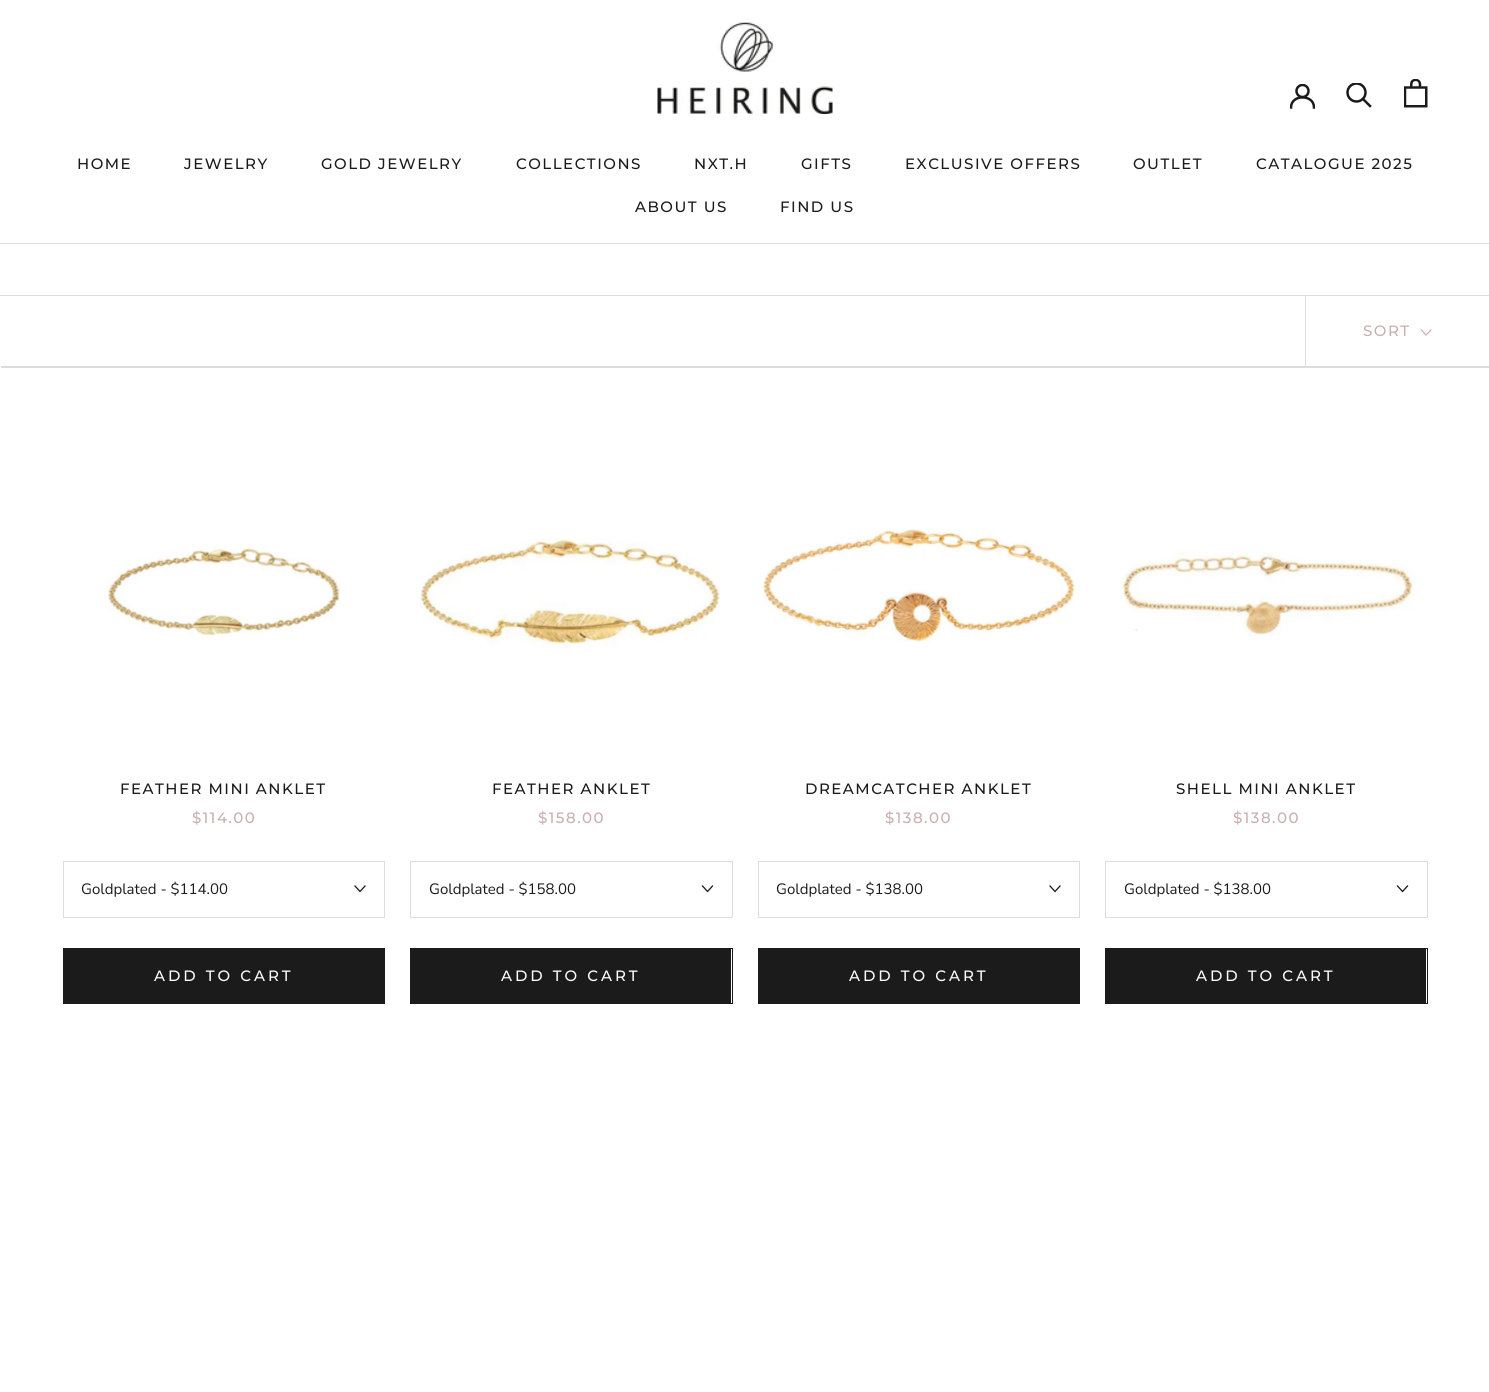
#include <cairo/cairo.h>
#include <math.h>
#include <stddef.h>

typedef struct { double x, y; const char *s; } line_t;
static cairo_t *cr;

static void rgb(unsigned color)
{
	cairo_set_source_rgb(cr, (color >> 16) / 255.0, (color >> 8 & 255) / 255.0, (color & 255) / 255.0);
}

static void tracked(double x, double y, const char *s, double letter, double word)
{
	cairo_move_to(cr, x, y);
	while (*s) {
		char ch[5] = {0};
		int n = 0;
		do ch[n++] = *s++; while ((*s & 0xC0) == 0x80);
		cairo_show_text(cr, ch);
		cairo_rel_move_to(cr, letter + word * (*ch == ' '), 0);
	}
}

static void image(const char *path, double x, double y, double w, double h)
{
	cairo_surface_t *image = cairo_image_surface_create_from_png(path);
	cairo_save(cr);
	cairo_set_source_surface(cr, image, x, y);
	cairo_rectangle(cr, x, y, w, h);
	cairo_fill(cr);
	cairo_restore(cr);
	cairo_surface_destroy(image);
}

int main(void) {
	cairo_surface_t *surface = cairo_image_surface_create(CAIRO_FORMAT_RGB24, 1489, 1392);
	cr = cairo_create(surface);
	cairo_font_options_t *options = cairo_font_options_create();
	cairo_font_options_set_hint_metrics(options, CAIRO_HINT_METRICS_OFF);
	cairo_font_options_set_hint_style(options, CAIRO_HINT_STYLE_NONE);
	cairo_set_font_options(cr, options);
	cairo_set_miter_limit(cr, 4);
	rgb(0xffffff);
	cairo_paint(cr);
	rgb(0xdddddd);
	cairo_rectangle(cr, 0, 243, 1489, 1);
	cairo_fill(cr);
	image("img/1.png", 657, 22, 176, 92);
	cairo_save(cr);
	cairo_rectangle(cr, 1290, 84, 25, 25);
	cairo_clip(cr);
	cairo_new_path(cr);
	cairo_move_to(cr, 1291, 107.5);
	cairo_curve_to(cr, 1291, 94, 1314, 94, 1314, 107.5);
	rgb(0x1c1b1b);
	cairo_set_line_width(cr, 2.5);
	cairo_set_line_cap(cr, CAIRO_LINE_CAP_SQUARE);
	cairo_stroke(cr);
	cairo_arc(cr, 1302.5, 91, 6, 0, 2 * M_PI);
	cairo_set_line_cap(cr, CAIRO_LINE_CAP_BUTT);
	cairo_stroke(cr);
	cairo_restore(cr);
	cairo_new_path(cr);
	cairo_move_to(cr, 1370, 106);
	cairo_line_to(cr, 1363, 99);
	rgb(0x1c1b1b);
	cairo_set_line_width(cr, 2.5);
	cairo_set_line_cap(cr, CAIRO_LINE_CAP_SQUARE);
	cairo_stroke(cr);
	cairo_save(cr);
	cairo_rectangle(cr, 1346, 83, 27, 26);
	cairo_clip(cr);
	cairo_arc(cr, 1356.5, 92.5, 9, 0, 2 * M_PI);
	cairo_set_line_cap(cr, CAIRO_LINE_CAP_BUTT);
	cairo_stroke(cr);
	cairo_restore(cr);
	image("img/2.png", 1404, 79, 24, 29);
	rgb(0xdddddd);
	cairo_new_path(cr);
	cairo_move_to(cr, -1, 295);
	cairo_line_to(cr, -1, 365);
	cairo_line_to(cr, 0, 365);
	cairo_line_to(cr, 0, 296);
	cairo_line_to(cr, 1489, 296);
	cairo_line_to(cr, 1489, 295);
	cairo_close_path(cr);
	cairo_fill(cr);
	cairo_new_path(cr);
	cairo_move_to(cr, 1, 366);
	cairo_line_to(cr, 1, 368);
	cairo_line_to(cr, 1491, 368);
	cairo_line_to(cr, 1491, 298);
	cairo_line_to(cr, 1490, 298);
	cairo_line_to(cr, 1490, 366);
	cairo_close_path(cr);
	cairo_fill(cr);
	cairo_rectangle(cr, 1305, 296, 1, 70);
	cairo_fill(cr);
	cairo_new_path(cr);
	cairo_move_to(cr, 1431, 330);
	cairo_line_to(cr, 1426, 335);
	cairo_line_to(cr, 1421.5, 330);
	rgb(0xcaafaf);
	cairo_set_line_width(cr, 1.2);
	cairo_stroke(cr);
	image("img/3.png", 108, 545, 233, 91);
	cairo_rectangle(cr, 63.5, 861.5, 321, 56);
	rgb(0xdddddd);
	cairo_set_line_width(cr, 1);
	cairo_set_line_cap(cr, CAIRO_LINE_CAP_BUTT);
	cairo_stroke(cr);
	cairo_new_path(cr);
	cairo_move_to(cr, 365, 886);
	cairo_line_to(cr, 360, 891.5);
	cairo_line_to(cr, 355, 886);
	rgb(0x1c1b1b);
	cairo_set_line_width(cr, 1.3);
	cairo_set_line_cap(cr, CAIRO_LINE_CAP_SQUARE);
	cairo_stroke(cr);
	cairo_rectangle(cr, 63.5, 948.5, 321, 55);
	cairo_set_line_width(cr, 1);
	cairo_set_line_cap(cr, CAIRO_LINE_CAP_BUTT);
	cairo_stroke(cr);
	cairo_rectangle(cr, 64, 949, 320, 54);
	cairo_fill(cr);
	image("img/4.png", 420, 538, 300, 110);
	cairo_rectangle(cr, 410.5, 861.5, 322, 56);
	rgb(0xdddddd);
	cairo_stroke(cr);
	cairo_new_path(cr);
	cairo_move_to(cr, 712.5, 886);
	cairo_line_to(cr, 707.5, 891.5);
	cairo_line_to(cr, 702.5, 886);
	rgb(0x1c1b1b);
	cairo_set_line_width(cr, 1.3);
	cairo_set_line_cap(cr, CAIRO_LINE_CAP_SQUARE);
	cairo_stroke(cr);
	cairo_rectangle(cr, 410.5, 948.5, 322, 55);
	cairo_set_line_width(cr, 1);
	cairo_set_line_cap(cr, CAIRO_LINE_CAP_BUTT);
	cairo_stroke(cr);
	cairo_rectangle(cr, 411, 949, 320, 54);
	cairo_fill(cr);
	image("img/5.png", 763, 528, 312, 114);
	cairo_rectangle(cr, 758.5, 861.5, 321, 56);
	rgb(0xdddddd);
	cairo_stroke(cr);
	cairo_new_path(cr);
	cairo_move_to(cr, 1060, 886);
	cairo_line_to(cr, 1055, 891.5);
	cairo_line_to(cr, 1050, 886);
	rgb(0x1c1b1b);
	cairo_set_line_width(cr, 1.3);
	cairo_set_line_cap(cr, CAIRO_LINE_CAP_SQUARE);
	cairo_stroke(cr);
	cairo_rectangle(cr, 758.5, 948.5, 321, 55);
	cairo_set_line_width(cr, 1);
	cairo_set_line_cap(cr, CAIRO_LINE_CAP_BUTT);
	cairo_stroke(cr);
	cairo_rectangle(cr, 759, 949, 320, 54);
	cairo_fill(cr);
	image("img/6.png", 1121, 551, 294, 85);
	cairo_rectangle(cr, 1105.5, 861.5, 322, 56);
	rgb(0xdddddd);
	cairo_stroke(cr);
	cairo_new_path(cr);
	cairo_move_to(cr, 1407.5, 886);
	cairo_line_to(cr, 1402.5, 891.5);
	cairo_line_to(cr, 1397.5, 886);
	rgb(0x1c1b1b);
	cairo_set_line_width(cr, 1.3);
	cairo_set_line_cap(cr, CAIRO_LINE_CAP_SQUARE);
	cairo_stroke(cr);
	cairo_rectangle(cr, 1105.5, 948.5, 322, 55);
	cairo_set_line_width(cr, 1);
	cairo_set_line_cap(cr, CAIRO_LINE_CAP_BUTT);
	cairo_stroke(cr);
	cairo_rectangle(cr, 1106, 949, 320, 54);
	cairo_fill(cr);
	cairo_select_font_face(cr, "Montserrat Medium", CAIRO_FONT_SLANT_NORMAL, CAIRO_FONT_WEIGHT_NORMAL);
	cairo_set_font_size(cr, 15);
	{
		static const line_t items[] = {
			{77, 169, "HOME"},
			{184, 169, "JEWELRY"},
			{321, 169, "GOLD JEWELRY"},
			{516, 169, "COLLECTIONS"},
			{694, 169, "NXT.H"},
			{801, 169, "GIFTS"},
			{905, 169, "EXCLUSIVE OFFERS"},
			{1133, 169, "OUTLET"},
			{1256, 169, "CATALOGUE 2025"},
			{635, 212, "ABOUT US"},
			{780, 212, "FIND US"},
		};
		for (size_t i = 0; i < sizeof items / sizeof *items; i++) {
			tracked(items[i].x, items[i].y, items[i].s, 1.5, 0);
		}
	}
	rgb(0xcaafaf);
	tracked(1363, 336, "SORT", 1.5, 0);
	rgb(0x1c1b1b);
	tracked(120, 794, "FEATHER MINI ANKLET", 1.5, 0);
	rgb(0xcaafaf);
	tracked(192, 823, "$114.00", 1.5, 0);
	cairo_select_font_face(cr, "Nunito Sans", CAIRO_FONT_SLANT_NORMAL, CAIRO_FONT_WEIGHT_NORMAL);
	rgb(0x1c1b1b);
	cairo_move_to(cr, 81, 894);
	cairo_show_text(cr, "Goldplated - $114.00");
	cairo_select_font_face(cr, "Montserrat Medium", CAIRO_FONT_SLANT_NORMAL, CAIRO_FONT_WEIGHT_NORMAL);
	rgb(0xffffff);
	tracked(154, 981, "ADD TO CART", 3, 0);
	rgb(0x1c1b1b);
	tracked(492, 794, "FEATHER ANKLET", 1.5, 0);
	rgb(0xcaafaf);
	tracked(538, 823, "$158.00", 1.5, 0);
	cairo_select_font_face(cr, "Nunito Sans", CAIRO_FONT_SLANT_NORMAL, CAIRO_FONT_WEIGHT_NORMAL);
	rgb(0x1c1b1b);
	cairo_move_to(cr, 429, 894);
	cairo_show_text(cr, "Goldplated - $158.00");
	cairo_select_font_face(cr, "Montserrat Medium", CAIRO_FONT_SLANT_NORMAL, CAIRO_FONT_WEIGHT_NORMAL);
	rgb(0xffffff);
	tracked(501, 981, "ADD TO CART", 3, 0);
	rgb(0x1c1b1b);
	tracked(805, 794, "DREAMCATCHER ANKLET", 1.5, 0);
	rgb(0xcaafaf);
	tracked(885, 823, "$138.00", 1.5, 0);
	cairo_select_font_face(cr, "Nunito Sans", CAIRO_FONT_SLANT_NORMAL, CAIRO_FONT_WEIGHT_NORMAL);
	rgb(0x1c1b1b);
	cairo_move_to(cr, 776, 894);
	cairo_show_text(cr, "Goldplated - $138.00");
	cairo_select_font_face(cr, "Montserrat Medium", CAIRO_FONT_SLANT_NORMAL, CAIRO_FONT_WEIGHT_NORMAL);
	rgb(0xffffff);
	tracked(849, 981, "ADD TO CART", 3, 0);
	rgb(0x1c1b1b);
	tracked(1176, 794, "SHELL MINI ANKLET", 1.5, 0);
	rgb(0xcaafaf);
	tracked(1233, 823, "$138.00", 1.5, 0);
	cairo_select_font_face(cr, "Nunito Sans", CAIRO_FONT_SLANT_NORMAL, CAIRO_FONT_WEIGHT_NORMAL);
	rgb(0x1c1b1b);
	cairo_move_to(cr, 1124, 894);
	cairo_show_text(cr, "Goldplated - $138.00");
	cairo_select_font_face(cr, "Montserrat Medium", CAIRO_FONT_SLANT_NORMAL, CAIRO_FONT_WEIGHT_NORMAL);
	rgb(0xffffff);
	tracked(1196, 981, "ADD TO CART", 3, 0);
	cairo_surface_write_to_png(surface, "page.png");
	cairo_font_options_destroy(options);
	cairo_destroy(cr);
	cairo_surface_destroy(surface);
	return 0;
}
